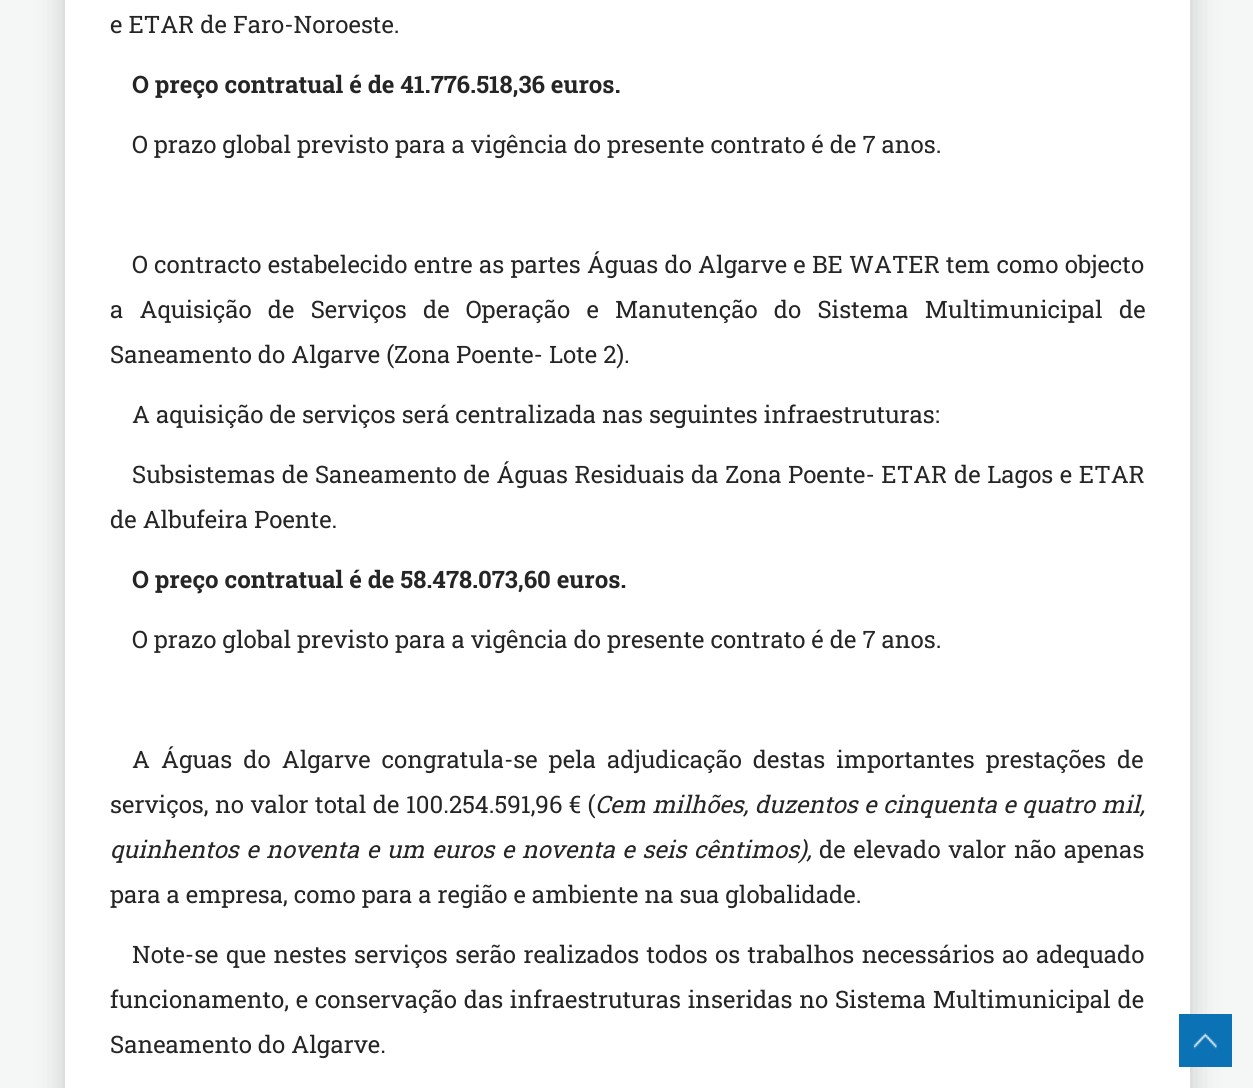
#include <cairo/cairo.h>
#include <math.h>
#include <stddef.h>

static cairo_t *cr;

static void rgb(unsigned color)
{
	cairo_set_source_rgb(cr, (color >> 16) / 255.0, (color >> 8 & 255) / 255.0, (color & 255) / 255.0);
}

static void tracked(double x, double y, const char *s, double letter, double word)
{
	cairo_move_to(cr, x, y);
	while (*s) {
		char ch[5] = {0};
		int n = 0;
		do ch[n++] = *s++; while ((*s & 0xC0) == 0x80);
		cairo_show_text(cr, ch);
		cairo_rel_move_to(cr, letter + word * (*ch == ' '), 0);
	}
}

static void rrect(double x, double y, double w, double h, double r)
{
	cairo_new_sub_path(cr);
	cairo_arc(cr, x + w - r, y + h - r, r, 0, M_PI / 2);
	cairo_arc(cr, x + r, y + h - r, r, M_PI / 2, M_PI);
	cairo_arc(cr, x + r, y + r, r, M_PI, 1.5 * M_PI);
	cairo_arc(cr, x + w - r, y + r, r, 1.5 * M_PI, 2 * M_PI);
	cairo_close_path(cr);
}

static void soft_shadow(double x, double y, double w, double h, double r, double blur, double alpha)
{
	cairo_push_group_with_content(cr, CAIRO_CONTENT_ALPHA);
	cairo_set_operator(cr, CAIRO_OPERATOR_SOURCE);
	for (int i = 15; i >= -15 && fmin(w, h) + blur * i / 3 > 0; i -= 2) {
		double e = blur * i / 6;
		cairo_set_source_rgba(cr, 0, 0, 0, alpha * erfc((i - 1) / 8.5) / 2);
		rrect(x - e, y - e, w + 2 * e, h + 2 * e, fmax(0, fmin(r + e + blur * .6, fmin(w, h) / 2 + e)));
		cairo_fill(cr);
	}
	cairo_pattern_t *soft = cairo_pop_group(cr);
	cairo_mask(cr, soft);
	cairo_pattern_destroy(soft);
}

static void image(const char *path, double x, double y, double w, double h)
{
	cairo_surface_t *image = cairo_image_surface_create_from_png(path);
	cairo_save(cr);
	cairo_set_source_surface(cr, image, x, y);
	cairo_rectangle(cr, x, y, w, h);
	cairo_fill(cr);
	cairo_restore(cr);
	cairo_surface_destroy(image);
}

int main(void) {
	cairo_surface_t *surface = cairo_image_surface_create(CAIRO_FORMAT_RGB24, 1253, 1088);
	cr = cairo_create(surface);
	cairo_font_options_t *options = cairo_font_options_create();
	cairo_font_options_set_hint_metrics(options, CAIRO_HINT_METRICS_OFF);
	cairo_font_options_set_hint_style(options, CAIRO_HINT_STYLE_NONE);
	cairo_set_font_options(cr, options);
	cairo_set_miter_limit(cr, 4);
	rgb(0xf4f7f6);
	cairo_paint(cr);
	rgb(0x000000);
	soft_shadow(65, -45, 1125, 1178, 0, 15, 0.2);
	rgb(0xffffff);
	cairo_rectangle(cr, 65, 0, 1125, 1088);
	cairo_fill(cr);
	rgb(0x0b72b5);
	cairo_rectangle(cr, 1179, 1014, 53, 53);
	cairo_fill(cr);
	image("img/1.png", 1193, 1033, 24, 16);
	cairo_select_font_face(cr, "Roboto Slab", CAIRO_FONT_SLANT_NORMAL, CAIRO_FONT_WEIGHT_NORMAL);
	cairo_set_font_size(cr, 24);
	rgb(0x252525);
	cairo_move_to(cr, 110, 33);
	cairo_show_text(cr, "e ETAR de Faro-Noroeste.");
	cairo_select_font_face(cr, "Roboto Slab", CAIRO_FONT_SLANT_NORMAL, CAIRO_FONT_WEIGHT_BOLD);
	cairo_move_to(cr, 132, 93);
	cairo_show_text(cr, "O preço contratual é de 41.776.518,36 euros.");
	cairo_select_font_face(cr, "Roboto Slab", CAIRO_FONT_SLANT_NORMAL, CAIRO_FONT_WEIGHT_NORMAL);
	cairo_move_to(cr, 132, 153);
	cairo_show_text(cr, "O prazo global previsto para a vigência do presente contrato é de 7 anos.");
	tracked(132, 273, "O contracto estabelecido entre as partes Águas do Algarve e BE WATER tem como objecto", 0, 0.25);
	tracked(110, 318, "a Aquisição de Serviços de Operação e Manutenção do Sistema Multimunicipal de", 0, 10.25);
	cairo_move_to(cr, 110, 363);
	cairo_show_text(cr, "Saneamento do Algarve (Zona Poente- Lote 2).");
	cairo_move_to(cr, 132, 423);
	cairo_show_text(cr, "A aquisição de serviços será centralizada nas seguintes infraestruturas:");
	tracked(132, 483, "Subsistemas de Saneamento de Águas Residuais da Zona Poente- ETAR de Lagos e ETAR", 0, 0.6);
	cairo_move_to(cr, 110, 528);
	cairo_show_text(cr, "de Albufeira Poente.");
	cairo_select_font_face(cr, "Roboto Slab", CAIRO_FONT_SLANT_NORMAL, CAIRO_FONT_WEIGHT_BOLD);
	cairo_move_to(cr, 132, 588);
	cairo_show_text(cr, "O preço contratual é de 58.478.073,60 euros.");
	cairo_select_font_face(cr, "Roboto Slab", CAIRO_FONT_SLANT_NORMAL, CAIRO_FONT_WEIGHT_NORMAL);
	cairo_move_to(cr, 132, 648);
	cairo_show_text(cr, "O prazo global previsto para a vigência do presente contrato é de 7 anos.");
	tracked(132, 768, "A Águas do Algarve congratula-se pela adjudicação destas importantes prestações de", 0, 5);
	tracked(110, 813, "serviços, no valor total de 100.254.591,96 € (", 0, 0.5);
	cairo_select_font_face(cr, "Roboto Slab", CAIRO_FONT_SLANT_ITALIC, CAIRO_FONT_WEIGHT_NORMAL);
	tracked(595, 813, "Cem milhões, duzentos e cinquenta e quatro mil,", 0, 0.5);
	tracked(110, 858, "quinhentos e noventa e um euros e noventa e seis cêntimos),", 0, 1.6);
	cairo_select_font_face(cr, "Roboto Slab", CAIRO_FONT_SLANT_NORMAL, CAIRO_FONT_WEIGHT_NORMAL);
	tracked(819, 858, "de elevado valor não apenas", 0, 1.6);
	cairo_move_to(cr, 110, 903);
	cairo_show_text(cr, "para a empresa, como para a região e ambiente na sua globalidade.");
	tracked(132, 963, "Note-se que nestes serviços serão realizados todos os trabalhos necessários ao adequado", 0, 1.4);
	tracked(110, 1008, "funcionamento, e conservação das infraestruturas inseridas no Sistema Multimunicipal de", 0, 0.75);
	cairo_move_to(cr, 110, 1053);
	cairo_show_text(cr, "Saneamento do Algarve.");
	cairo_surface_write_to_png(surface, "page.png");
	cairo_font_options_destroy(options);
	cairo_destroy(cr);
	cairo_surface_destroy(surface);
	return 0;
}
